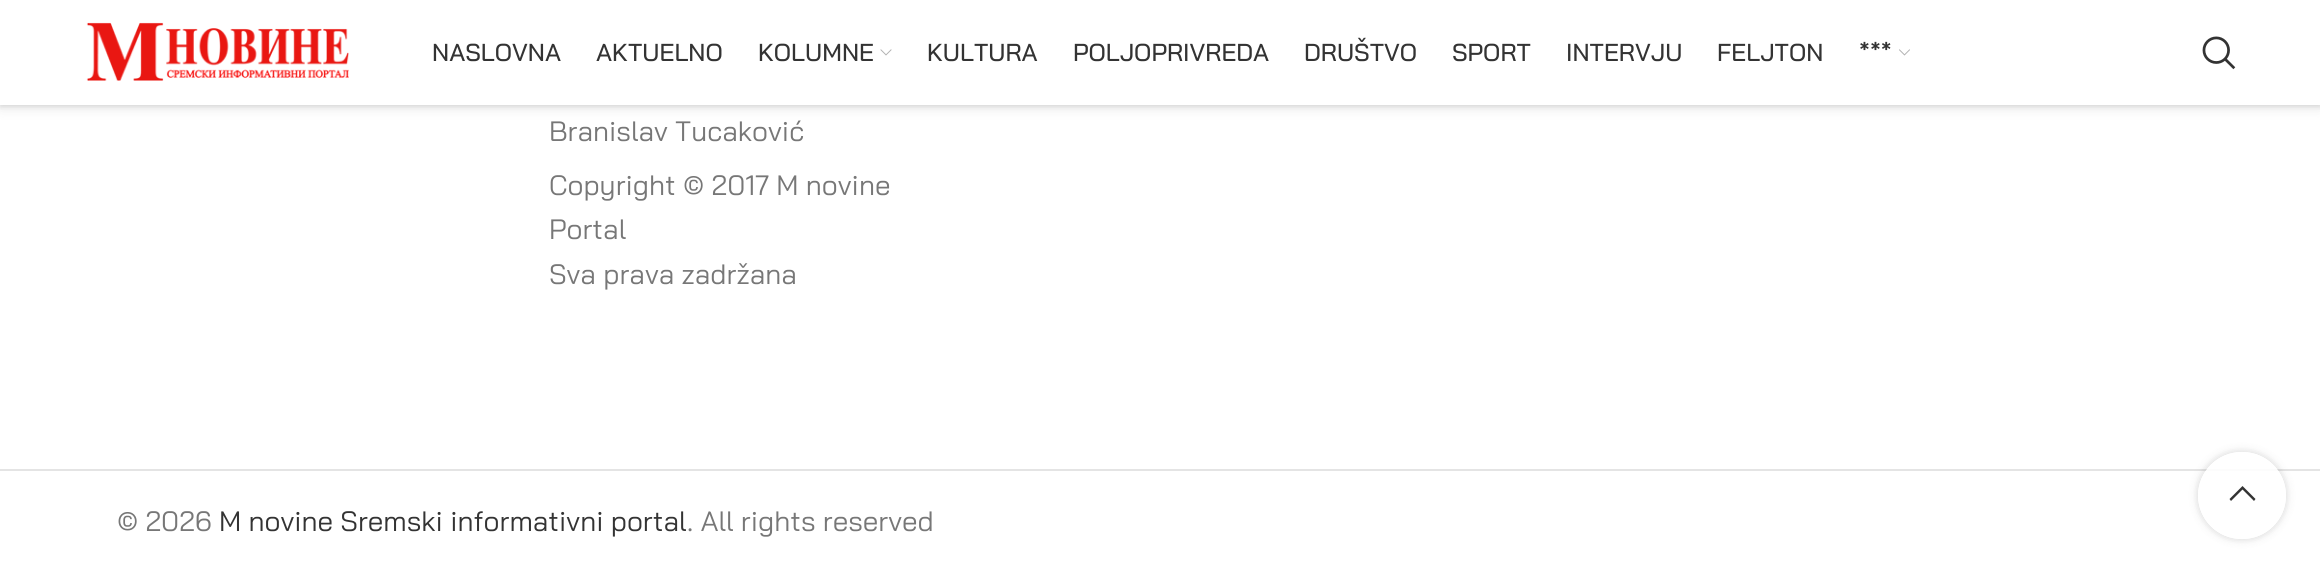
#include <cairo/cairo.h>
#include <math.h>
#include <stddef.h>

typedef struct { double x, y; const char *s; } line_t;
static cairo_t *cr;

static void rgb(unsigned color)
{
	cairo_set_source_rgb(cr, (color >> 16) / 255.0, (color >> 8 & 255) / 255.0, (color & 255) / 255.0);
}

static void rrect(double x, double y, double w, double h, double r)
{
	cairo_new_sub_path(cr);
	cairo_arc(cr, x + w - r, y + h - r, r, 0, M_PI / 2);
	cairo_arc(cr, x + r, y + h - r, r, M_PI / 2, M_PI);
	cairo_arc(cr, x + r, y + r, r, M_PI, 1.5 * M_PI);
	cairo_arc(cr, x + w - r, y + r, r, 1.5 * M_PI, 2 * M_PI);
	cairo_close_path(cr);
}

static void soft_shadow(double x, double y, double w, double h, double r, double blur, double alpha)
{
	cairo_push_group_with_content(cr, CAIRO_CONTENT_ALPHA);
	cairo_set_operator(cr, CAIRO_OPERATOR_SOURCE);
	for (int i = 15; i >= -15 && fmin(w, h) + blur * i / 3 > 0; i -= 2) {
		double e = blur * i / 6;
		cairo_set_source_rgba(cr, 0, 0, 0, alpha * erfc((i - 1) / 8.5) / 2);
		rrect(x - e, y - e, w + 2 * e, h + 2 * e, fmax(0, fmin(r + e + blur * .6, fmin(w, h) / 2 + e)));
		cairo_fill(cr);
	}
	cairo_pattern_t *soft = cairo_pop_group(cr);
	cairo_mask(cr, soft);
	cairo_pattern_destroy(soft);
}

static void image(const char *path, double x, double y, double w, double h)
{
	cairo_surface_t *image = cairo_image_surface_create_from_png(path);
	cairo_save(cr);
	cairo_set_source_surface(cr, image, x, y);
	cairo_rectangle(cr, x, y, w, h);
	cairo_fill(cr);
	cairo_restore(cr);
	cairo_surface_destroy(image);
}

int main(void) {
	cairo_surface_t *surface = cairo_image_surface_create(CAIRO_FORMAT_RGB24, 2320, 573);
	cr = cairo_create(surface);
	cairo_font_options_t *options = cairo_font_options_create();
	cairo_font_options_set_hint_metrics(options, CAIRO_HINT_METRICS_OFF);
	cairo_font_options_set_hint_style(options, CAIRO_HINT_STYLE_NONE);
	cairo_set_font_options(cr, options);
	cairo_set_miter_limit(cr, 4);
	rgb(0xffffff);
	cairo_paint(cr);
	rgb(0x000000);
	soft_shadow(0, 2, 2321, 105, 0, 2.5, 0.1);
	soft_shadow(0, 2, 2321, 105, 0, 7, 0.1);
	rgb(0xffffff);
	cairo_rectangle(cr, 0, 0, 2320, 105);
	cairo_fill(cr);
	image("img/1.png", 86, 22, 263, 59);
	image("img/2.png", 880, 49, 12, 7);
	image("img/3.png", 1899, 49, 11, 7);
	image("img/4.png", 2202, 36, 34, 34);
	rgb(0xe4e4e4);
	cairo_rectangle(cr, 0, 469, 2320, 2);
	cairo_fill(cr);
	cairo_save(cr);
	cairo_set_fill_rule(cr, CAIRO_FILL_RULE_EVEN_ODD);
	cairo_new_path(cr);
	cairo_move_to(cr, 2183, 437);
	cairo_line_to(cr, 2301, 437);
	cairo_line_to(cr, 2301, 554);
	cairo_line_to(cr, 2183, 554);
	cairo_close_path(cr);
	cairo_move_to(cr, 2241.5, 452);
	cairo_line_to(cr, 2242.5, 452);
	cairo_curve_to(cr, 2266.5, 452, 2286, 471.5, 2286, 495.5);
	cairo_curve_to(cr, 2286, 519.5, 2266.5, 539, 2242.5, 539);
	cairo_line_to(cr, 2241.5, 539);
	cairo_curve_to(cr, 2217.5, 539, 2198, 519.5, 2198, 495.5);
	cairo_curve_to(cr, 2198, 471.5, 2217.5, 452, 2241.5, 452);
	cairo_close_path(cr);
	cairo_clip(cr);
	rgb(0x000000);
	soft_shadow(2198, 452, 88, 87, 43.5, 4.5, 0.17);
	cairo_restore(cr);
	cairo_set_source_rgba(cr, 1, 1, 1, 0.9);
	rrect(2198, 452, 88, 87, 43.5);
	cairo_fill(cr);
	rgb(0x333333);
	cairo_new_path(cr);
	cairo_move_to(cr, 2254, 501);
	cairo_line_to(cr, 2255.5, 499);
	cairo_line_to(cr, 2242.5, 486);
	cairo_line_to(cr, 2229.5, 499);
	cairo_line_to(cr, 2231, 501);
	cairo_line_to(cr, 2242.5, 489.5);
	cairo_close_path(cr);
	cairo_fill(cr);
	cairo_select_font_face(cr, "Bai Jamjuree Medium", CAIRO_FONT_SLANT_NORMAL, CAIRO_FONT_WEIGHT_NORMAL);
	cairo_set_font_size(cr, 24.5);
	{
		static const line_t items[] = {
			{432, 61, "NASLOVNA"},
			{596, 61, "AKTUELNO"},
			{758, 61, "KOLUMNE"},
			{927, 61, "KULTURA"},
			{1073, 61, "POLJOPRIVREDA"},
			{1304, 61, "DRUŠTVO"},
			{1452, 61, "SPORT"},
			{1566, 61, "INTERVJU"},
			{1717, 61, "FELJTON"},
			{1859, 61, "***"},
		};
		for (size_t i = 0; i < sizeof items / sizeof *items; i++) {
			cairo_move_to(cr, items[i].x, items[i].y);
			cairo_show_text(cr, items[i].s);
		}
	}
	cairo_select_font_face(cr, "Bai Jamjuree", CAIRO_FONT_SLANT_NORMAL, CAIRO_FONT_WEIGHT_NORMAL);
	cairo_set_font_size(cr, 28);
	rgb(0x777777);
	{
		static const line_t items[] = {
			{549, 141, "Branislav Tucaković"},
			{549, 195, "Copyright © 2017 M novine"},
			{549, 239, "Portal"},
			{549, 284, "Sva prava zadržana"},
			{117, 531, "© 2026"},
		};
		for (size_t i = 0; i < sizeof items / sizeof *items; i++) {
			cairo_move_to(cr, items[i].x, items[i].y);
			cairo_show_text(cr, items[i].s);
		}
	}
	rgb(0x333333);
	cairo_move_to(cr, 219, 531);
	cairo_show_text(cr, "M novine Sremski informativni portal");
	rgb(0x777777);
	cairo_move_to(cr, 687, 531);
	cairo_show_text(cr, ". All rights reserved");
	cairo_surface_write_to_png(surface, "page.png");
	cairo_font_options_destroy(options);
	cairo_destroy(cr);
	cairo_surface_destroy(surface);
	return 0;
}
